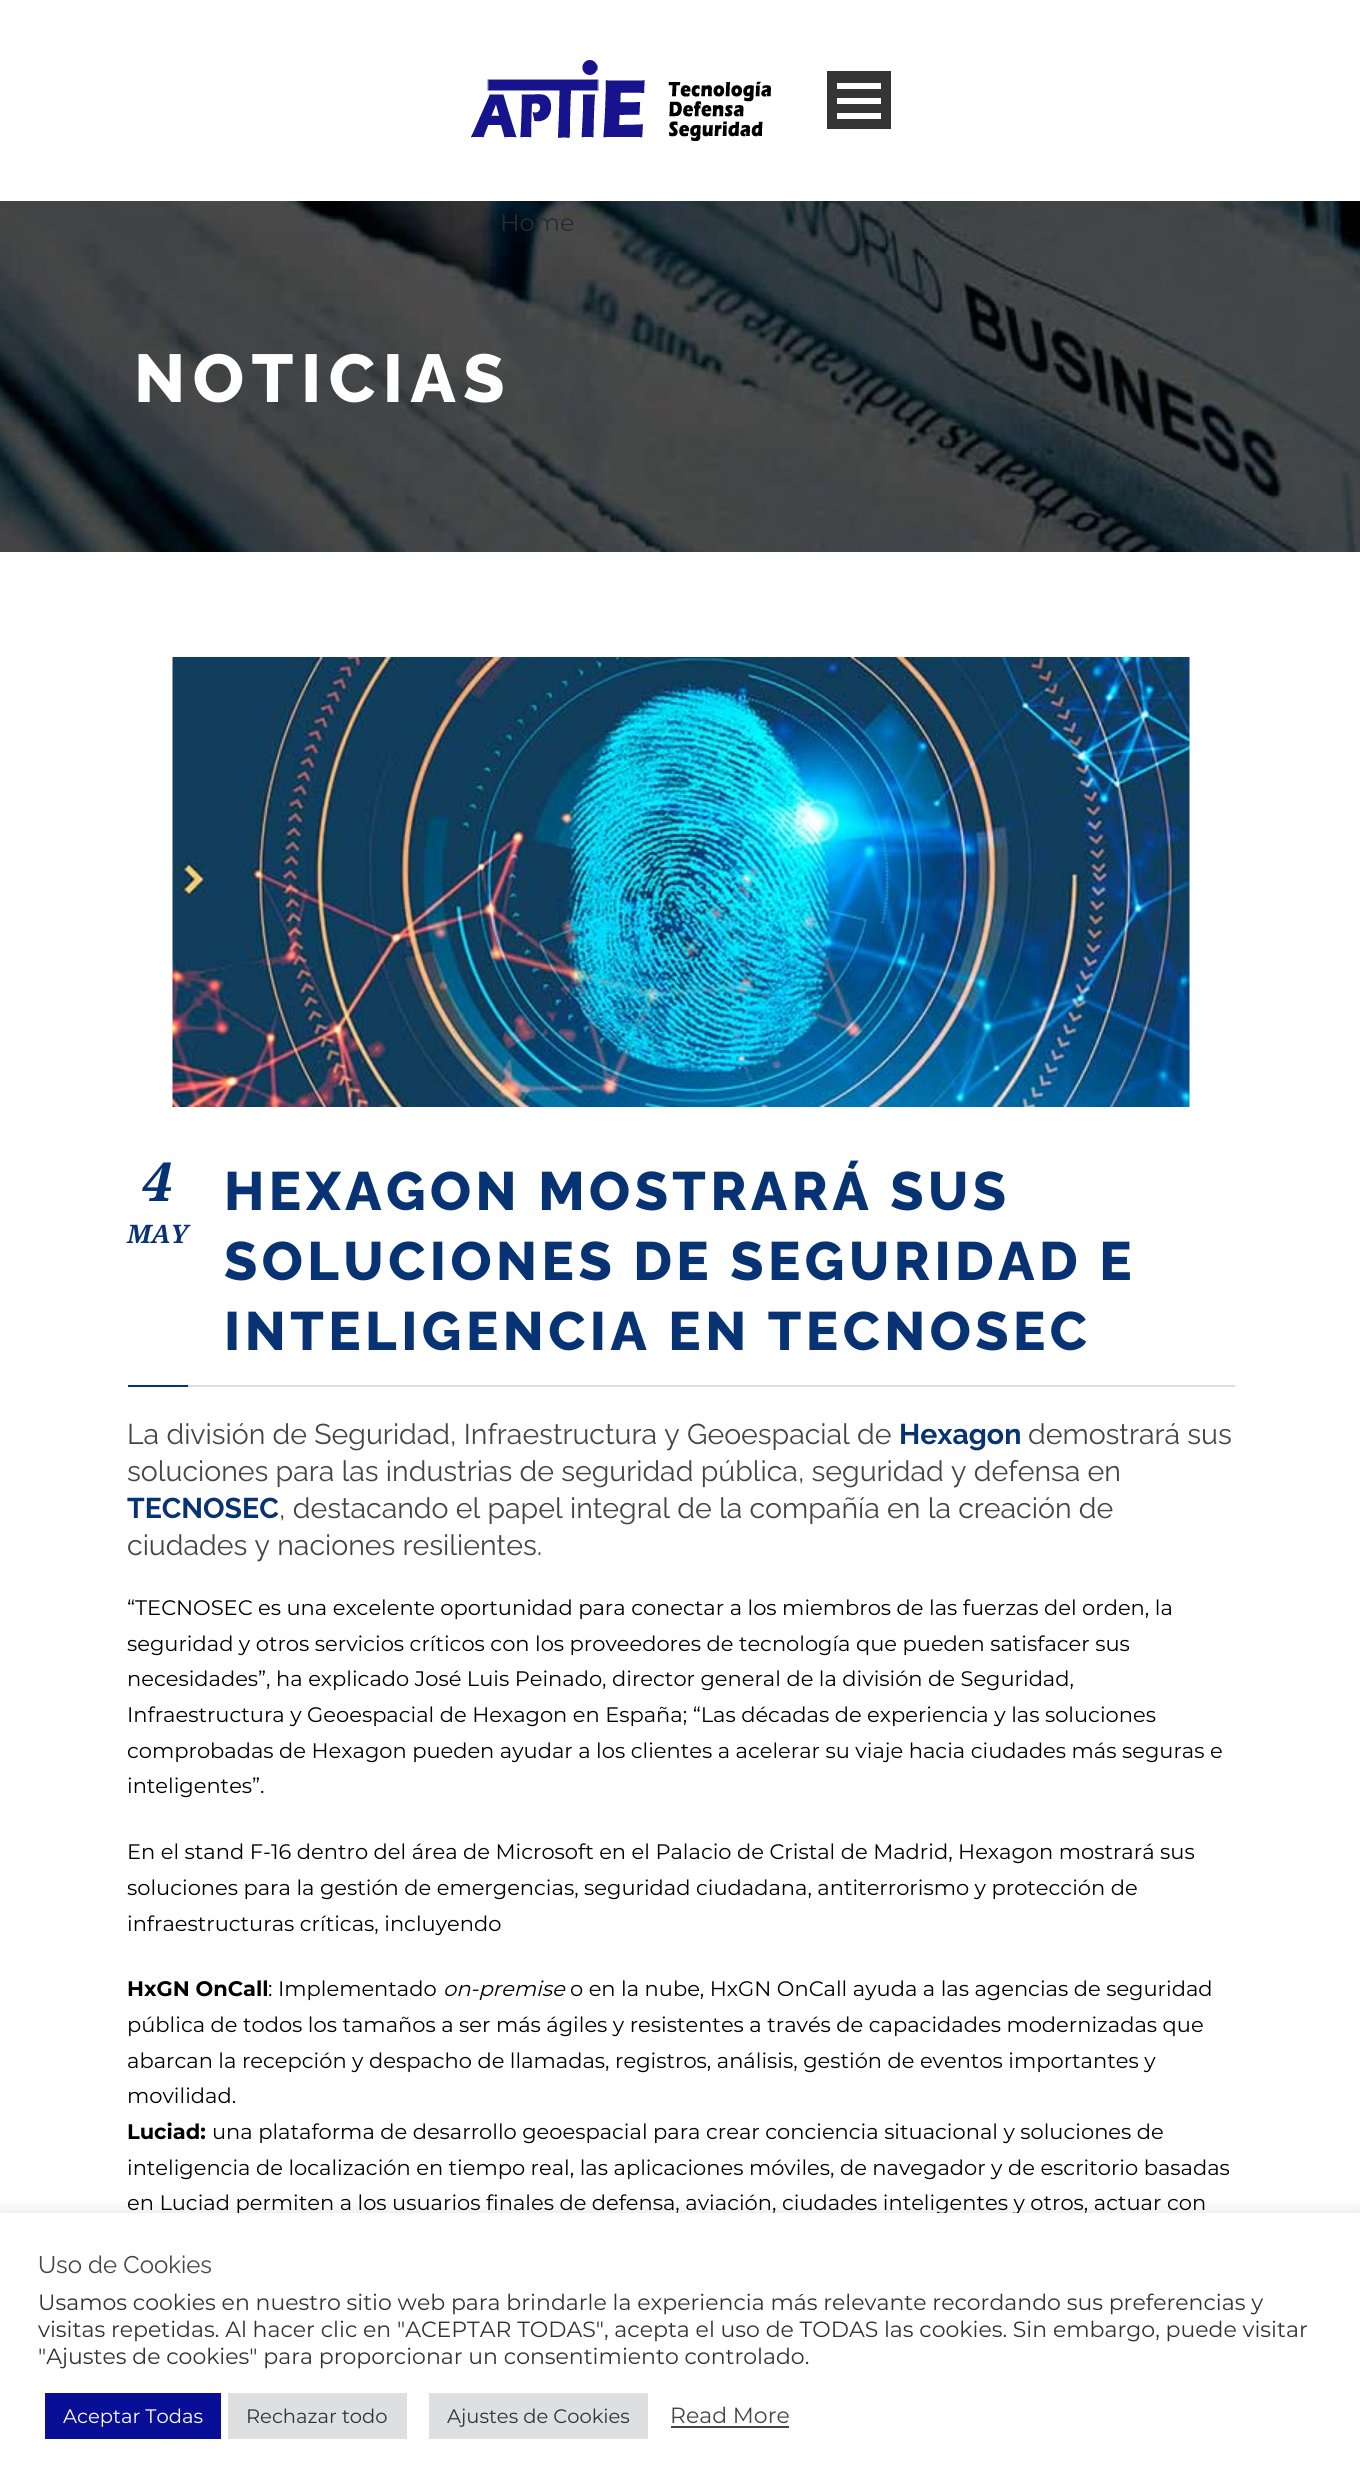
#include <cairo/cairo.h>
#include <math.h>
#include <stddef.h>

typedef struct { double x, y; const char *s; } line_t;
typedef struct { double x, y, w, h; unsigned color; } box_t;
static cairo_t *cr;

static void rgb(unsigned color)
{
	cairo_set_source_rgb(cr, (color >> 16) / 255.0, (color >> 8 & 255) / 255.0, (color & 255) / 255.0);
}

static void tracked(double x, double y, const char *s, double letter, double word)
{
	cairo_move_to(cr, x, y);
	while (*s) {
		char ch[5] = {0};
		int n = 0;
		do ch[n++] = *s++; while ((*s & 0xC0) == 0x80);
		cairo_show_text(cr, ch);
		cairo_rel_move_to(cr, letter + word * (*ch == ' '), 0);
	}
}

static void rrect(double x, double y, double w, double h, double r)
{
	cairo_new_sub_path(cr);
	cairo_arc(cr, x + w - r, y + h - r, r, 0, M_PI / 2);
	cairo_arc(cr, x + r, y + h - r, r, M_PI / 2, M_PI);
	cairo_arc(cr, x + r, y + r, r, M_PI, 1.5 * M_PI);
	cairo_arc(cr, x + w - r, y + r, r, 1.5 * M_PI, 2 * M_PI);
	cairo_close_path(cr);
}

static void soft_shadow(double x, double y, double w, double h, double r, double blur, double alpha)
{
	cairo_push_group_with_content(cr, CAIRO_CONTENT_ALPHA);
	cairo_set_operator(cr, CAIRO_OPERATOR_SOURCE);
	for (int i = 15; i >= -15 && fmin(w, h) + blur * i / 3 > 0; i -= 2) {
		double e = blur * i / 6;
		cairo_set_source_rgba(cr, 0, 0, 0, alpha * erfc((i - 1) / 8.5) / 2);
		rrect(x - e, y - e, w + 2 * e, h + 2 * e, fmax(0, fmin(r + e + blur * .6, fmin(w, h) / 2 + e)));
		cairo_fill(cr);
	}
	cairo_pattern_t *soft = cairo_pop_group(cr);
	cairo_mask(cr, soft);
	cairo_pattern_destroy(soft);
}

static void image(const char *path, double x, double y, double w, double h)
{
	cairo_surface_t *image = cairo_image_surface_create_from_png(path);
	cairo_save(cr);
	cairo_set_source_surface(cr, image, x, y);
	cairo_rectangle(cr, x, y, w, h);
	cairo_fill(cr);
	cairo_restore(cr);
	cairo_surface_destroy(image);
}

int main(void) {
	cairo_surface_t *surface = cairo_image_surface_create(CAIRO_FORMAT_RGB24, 1360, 2483);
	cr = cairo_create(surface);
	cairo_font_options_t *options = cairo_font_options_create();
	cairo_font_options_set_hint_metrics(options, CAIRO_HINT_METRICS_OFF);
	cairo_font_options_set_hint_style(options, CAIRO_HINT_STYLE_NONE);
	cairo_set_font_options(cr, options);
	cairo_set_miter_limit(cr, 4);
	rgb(0xffffff);
	cairo_paint(cr);
	image("img/1.png", 471, 60, 300, 81);
	{
		static const box_t items[] = {
			{827, 71, 64, 58, 0x353535},
			{837, 113, 44, 6, 0xffffff},
			{837, 98, 44, 6, 0xffffff},
			{837, 83, 44, 6, 0xffffff},
		};
		for (size_t i = 0; i < sizeof items / sizeof *items; i++) {
			rgb(items[i].color);
			cairo_rectangle(cr, items[i].x, items[i].y, items[i].w, items[i].h);
			cairo_fill(cr);
		}
	}
	image("img/2.png", 0, 201, 1360, 351);
	image("img/3.png", 172, 657, 1018, 450);
	rgb(0xdddddd);
	cairo_rectangle(cr, 188, 1385, 1047, 2);
	cairo_fill(cr);
	rgb(0x073375);
	cairo_rectangle(cr, 128, 1385, 60, 2);
	cairo_fill(cr);
	rgb(0xacabab);
	soft_shadow(0, 2211, 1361, 272, 0, 7.5, 0.3);
	cairo_select_font_face(cr, "Montserrat", CAIRO_FONT_SLANT_NORMAL, CAIRO_FONT_WEIGHT_NORMAL);
	cairo_set_font_size(cr, 24);
	rgb(0x242c32);
	cairo_move_to(cr, 500, 231);
	cairo_show_text(cr, "Home");
	cairo_select_font_face(cr, "Raleway ExtraBold", CAIRO_FONT_SLANT_NORMAL, CAIRO_FONT_WEIGHT_NORMAL);
	cairo_set_font_size(cr, 67.5);
	rgb(0xffffff);
	tracked(134, 402, "NOTICIAS", 7.5, 0);
	cairo_select_font_face(cr, "Droid Serif", CAIRO_FONT_SLANT_ITALIC, CAIRO_FONT_WEIGHT_BOLD);
	cairo_set_font_size(cr, 54);
	rgb(0x073375);
	cairo_move_to(cr, 142, 1201);
	cairo_show_text(cr, "4");
	cairo_set_font_size(cr, 25.5);
	cairo_move_to(cr, 127, 1243);
	cairo_show_text(cr, "MAY");
	cairo_select_font_face(cr, "Raleway ExtraBold", CAIRO_FONT_SLANT_NORMAL, CAIRO_FONT_WEIGHT_NORMAL);
	cairo_set_font_size(cr, 54);
	{
		static const line_t items[] = {
			{224, 1210, "HEXAGON MOSTRARÁ SUS"},
			{224, 1280, "SOLUCIONES DE SEGURIDAD E"},
			{224, 1350, "INTELIGENCIA EN TECNOSEC"},
		};
		for (size_t i = 0; i < sizeof items / sizeof *items; i++) {
			tracked(items[i].x, items[i].y, items[i].s, 4.5, 0);
		}
	}
	cairo_select_font_face(cr, "Raleway", CAIRO_FONT_SLANT_NORMAL, CAIRO_FONT_WEIGHT_NORMAL);
	cairo_set_font_size(cr, 28.5);
	rgb(0x454545);
	cairo_move_to(cr, 127, 1444);
	cairo_show_text(cr, "La división de Seguridad, Infraestructura y Geoespacial de");
	cairo_select_font_face(cr, "Raleway", CAIRO_FONT_SLANT_NORMAL, CAIRO_FONT_WEIGHT_BOLD);
	rgb(0x073375);
	cairo_move_to(cr, 899, 1444);
	cairo_show_text(cr, "Hexagon");
	cairo_select_font_face(cr, "Raleway", CAIRO_FONT_SLANT_NORMAL, CAIRO_FONT_WEIGHT_NORMAL);
	rgb(0x454545);
	cairo_move_to(cr, 1028, 1444);
	cairo_show_text(cr, "demostrará sus");
	cairo_move_to(cr, 127, 1481);
	cairo_show_text(cr, "soluciones para las industrias de seguridad pública, seguridad y defensa en");
	cairo_select_font_face(cr, "Raleway", CAIRO_FONT_SLANT_NORMAL, CAIRO_FONT_WEIGHT_BOLD);
	rgb(0x073375);
	cairo_move_to(cr, 127, 1518);
	cairo_show_text(cr, "TECNOSEC");
	cairo_select_font_face(cr, "Raleway", CAIRO_FONT_SLANT_NORMAL, CAIRO_FONT_WEIGHT_NORMAL);
	rgb(0x454545);
	cairo_move_to(cr, 279, 1518);
	cairo_show_text(cr, ", destacando el papel integral de la compañía en la creación de");
	cairo_move_to(cr, 127, 1555);
	cairo_show_text(cr, "ciudades y naciones resilientes.");
	cairo_select_font_face(cr, "Montserrat", CAIRO_FONT_SLANT_NORMAL, CAIRO_FONT_WEIGHT_NORMAL);
	cairo_set_font_size(cr, 21);
	rgb(0x000000);
	{
		static const line_t items[] = {
			{127, 1615, "“TECNOSEC es una excelente oportunidad para conectar a los miembros de las fuerzas del orden, la"},
			{127, 1651, "seguridad y otros servicios críticos con los proveedores de tecnología que pueden satisfacer sus"},
			{127, 1686, "necesidades”, ha explicado José Luis Peinado, director general de la división de Seguridad,"},
			{127, 1722, "Infraestructura y Geoespacial de Hexagon en España; “Las décadas de experiencia y las soluciones"},
			{127, 1758, "comprobadas de Hexagon pueden ayudar a los clientes a acelerar su viaje hacia ciudades más seguras e"},
			{127, 1793, "inteligentes”."},
			{127, 1859, "En el stand F-16 dentro del área de Microsoft en el Palacio de Cristal de Madrid, Hexagon mostrará sus"},
			{127, 1895, "soluciones para la gestión de emergencias, seguridad ciudadana, antiterrorismo y protección de"},
			{127, 1931, "infraestructuras críticas, incluyendo"},
		};
		for (size_t i = 0; i < sizeof items / sizeof *items; i++) {
			cairo_move_to(cr, items[i].x, items[i].y);
			cairo_show_text(cr, items[i].s);
		}
	}
	cairo_select_font_face(cr, "Montserrat", CAIRO_FONT_SLANT_NORMAL, CAIRO_FONT_WEIGHT_BOLD);
	cairo_move_to(cr, 127, 1996);
	cairo_show_text(cr, "HxGN OnCall");
	cairo_select_font_face(cr, "Montserrat", CAIRO_FONT_SLANT_NORMAL, CAIRO_FONT_WEIGHT_NORMAL);
	cairo_move_to(cr, 268, 1996);
	cairo_show_text(cr, ": Implementado");
	cairo_select_font_face(cr, "Montserrat", CAIRO_FONT_SLANT_ITALIC, CAIRO_FONT_WEIGHT_NORMAL);
	cairo_move_to(cr, 443, 1996);
	cairo_show_text(cr, "on-premise");
	cairo_select_font_face(cr, "Montserrat", CAIRO_FONT_SLANT_NORMAL, CAIRO_FONT_WEIGHT_NORMAL);
	{
		static const line_t items[] = {
			{570, 1996, "o en la nube, HxGN OnCall ayuda a las agencias de seguridad"},
			{127, 2032, "pública de todos los tamaños a ser más ágiles y resistentes a través de capacidades modernizadas que"},
			{127, 2068, "abarcan la recepción y despacho de llamadas, registros, análisis, gestión de eventos importantes y"},
			{127, 2103, "movilidad."},
		};
		for (size_t i = 0; i < sizeof items / sizeof *items; i++) {
			cairo_move_to(cr, items[i].x, items[i].y);
			cairo_show_text(cr, items[i].s);
		}
	}
	cairo_select_font_face(cr, "Montserrat", CAIRO_FONT_SLANT_NORMAL, CAIRO_FONT_WEIGHT_BOLD);
	cairo_move_to(cr, 127, 2139);
	cairo_show_text(cr, "Luciad:");
	cairo_select_font_face(cr, "Montserrat", CAIRO_FONT_SLANT_NORMAL, CAIRO_FONT_WEIGHT_NORMAL);
	{
		static const line_t items[] = {
			{212, 2139, "una plataforma de desarrollo geoespacial para crear conciencia situacional y soluciones de"},
			{127, 2175, "inteligencia de localización en tiempo real, las aplicaciones móviles, de navegador y de escritorio basadas"},
			{127, 2210, "en Luciad permiten a los usuarios finales de defensa, aviación, ciudades inteligentes y otros, actuar con"},
		};
		for (size_t i = 0; i < sizeof items / sizeof *items; i++) {
			cairo_move_to(cr, items[i].x, items[i].y);
			cairo_show_text(cr, items[i].s);
		}
	}
	rgb(0xffffff);
	cairo_rectangle(cr, 0, 2213, 1360, 270);
	cairo_fill(cr);
	cairo_select_font_face(cr, "Raleway", CAIRO_FONT_SLANT_NORMAL, CAIRO_FONT_WEIGHT_NORMAL);
	cairo_set_font_size(cr, 24);
	rgb(0x454545);
	cairo_move_to(cr, 38, 2273);
	cairo_show_text(cr, "Uso de Cookies");
	cairo_select_font_face(cr, "Montserrat", CAIRO_FONT_SLANT_NORMAL, CAIRO_FONT_WEIGHT_NORMAL);
	cairo_set_font_size(cr, 22);
	rgb(0x333333);
	{
		static const line_t items[] = {
			{38, 2310, "Usamos cookies en nuestro sitio web para brindarle la experiencia más relevante recordando sus preferencias y"},
			{38, 2337, "visitas repetidas. Al hacer clic en \"ACEPTAR TODAS\", acepta el uso de TODAS las cookies. Sin embargo, puede visitar"},
			{38, 2364, "\"Ajustes de cookies\" para proporcionar un consentimiento controlado."},
		};
		for (size_t i = 0; i < sizeof items / sizeof *items; i++) {
			cairo_move_to(cr, items[i].x, items[i].y);
			cairo_show_text(cr, items[i].s);
		}
	}
	rgb(0x080e96);
	cairo_rectangle(cr, 45, 2393, 176, 46);
	cairo_fill(cr);
	cairo_set_font_size(cr, 19.5);
	rgb(0xffffff);
	cairo_move_to(cr, 63, 2423);
	cairo_show_text(cr, "Aceptar Todas");
	rgb(0xdedfe0);
	cairo_rectangle(cr, 228, 2393, 179, 46);
	cairo_fill(cr);
	rgb(0x333333);
	cairo_move_to(cr, 246, 2423);
	cairo_show_text(cr, "Rechazar todo");
	rgb(0xdedfe0);
	cairo_rectangle(cr, 429, 2393, 219, 46);
	cairo_fill(cr);
	rgb(0x333333);
	cairo_move_to(cr, 447, 2423);
	cairo_show_text(cr, "Ajustes de Cookies");
	cairo_set_font_size(cr, 22);
	rgb(0x454545);
	cairo_move_to(cr, 670, 2423);
	cairo_show_text(cr, "Read More");
	rgb(0x444444);
	cairo_rectangle(cr, 671, 2426, 118, 2);
	cairo_fill(cr);
	cairo_surface_write_to_png(surface, "page.png");
	cairo_font_options_destroy(options);
	cairo_destroy(cr);
	cairo_surface_destroy(surface);
	return 0;
}
